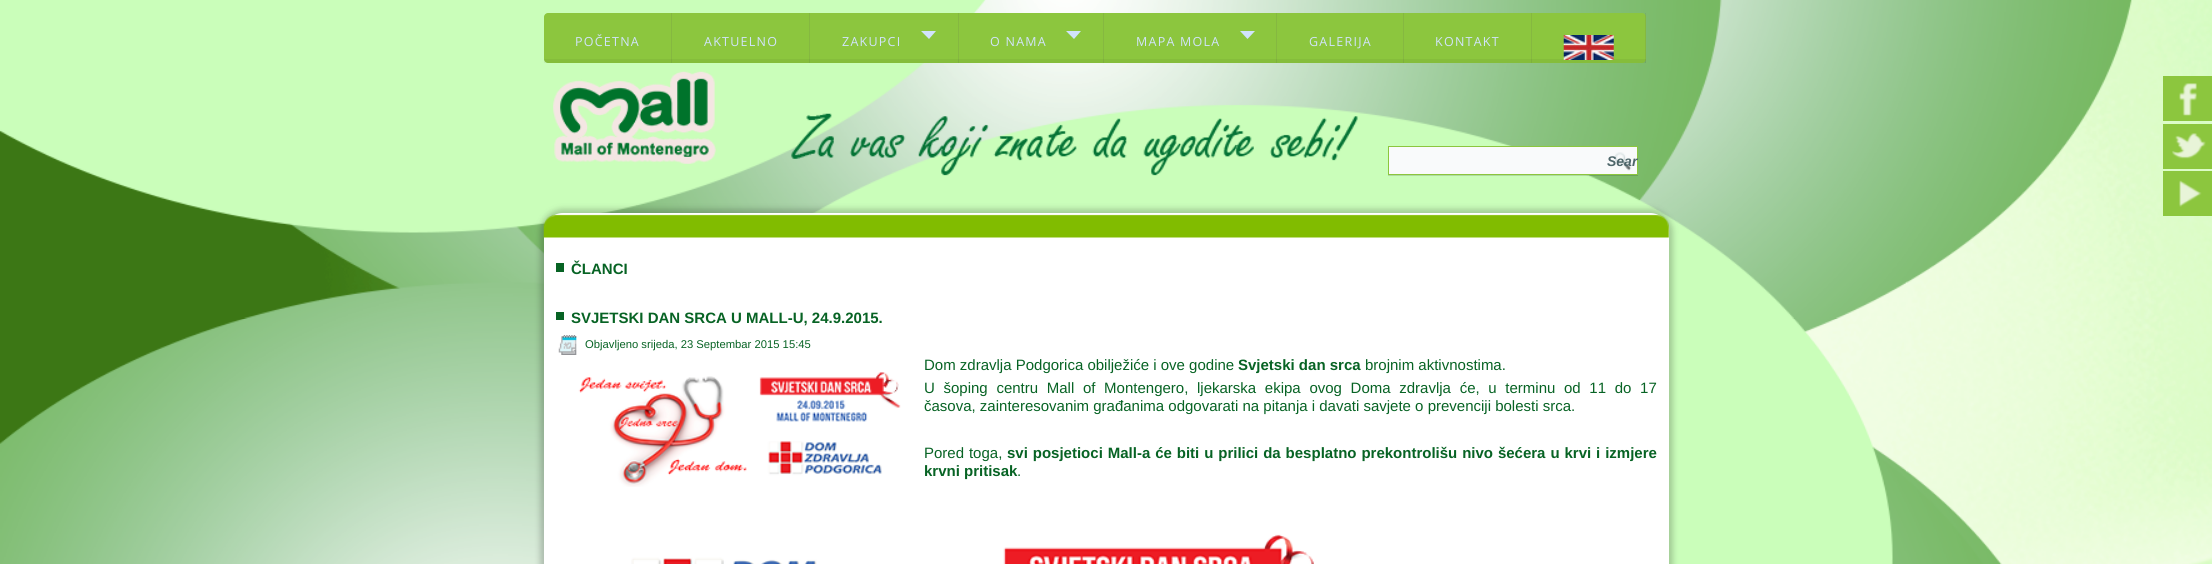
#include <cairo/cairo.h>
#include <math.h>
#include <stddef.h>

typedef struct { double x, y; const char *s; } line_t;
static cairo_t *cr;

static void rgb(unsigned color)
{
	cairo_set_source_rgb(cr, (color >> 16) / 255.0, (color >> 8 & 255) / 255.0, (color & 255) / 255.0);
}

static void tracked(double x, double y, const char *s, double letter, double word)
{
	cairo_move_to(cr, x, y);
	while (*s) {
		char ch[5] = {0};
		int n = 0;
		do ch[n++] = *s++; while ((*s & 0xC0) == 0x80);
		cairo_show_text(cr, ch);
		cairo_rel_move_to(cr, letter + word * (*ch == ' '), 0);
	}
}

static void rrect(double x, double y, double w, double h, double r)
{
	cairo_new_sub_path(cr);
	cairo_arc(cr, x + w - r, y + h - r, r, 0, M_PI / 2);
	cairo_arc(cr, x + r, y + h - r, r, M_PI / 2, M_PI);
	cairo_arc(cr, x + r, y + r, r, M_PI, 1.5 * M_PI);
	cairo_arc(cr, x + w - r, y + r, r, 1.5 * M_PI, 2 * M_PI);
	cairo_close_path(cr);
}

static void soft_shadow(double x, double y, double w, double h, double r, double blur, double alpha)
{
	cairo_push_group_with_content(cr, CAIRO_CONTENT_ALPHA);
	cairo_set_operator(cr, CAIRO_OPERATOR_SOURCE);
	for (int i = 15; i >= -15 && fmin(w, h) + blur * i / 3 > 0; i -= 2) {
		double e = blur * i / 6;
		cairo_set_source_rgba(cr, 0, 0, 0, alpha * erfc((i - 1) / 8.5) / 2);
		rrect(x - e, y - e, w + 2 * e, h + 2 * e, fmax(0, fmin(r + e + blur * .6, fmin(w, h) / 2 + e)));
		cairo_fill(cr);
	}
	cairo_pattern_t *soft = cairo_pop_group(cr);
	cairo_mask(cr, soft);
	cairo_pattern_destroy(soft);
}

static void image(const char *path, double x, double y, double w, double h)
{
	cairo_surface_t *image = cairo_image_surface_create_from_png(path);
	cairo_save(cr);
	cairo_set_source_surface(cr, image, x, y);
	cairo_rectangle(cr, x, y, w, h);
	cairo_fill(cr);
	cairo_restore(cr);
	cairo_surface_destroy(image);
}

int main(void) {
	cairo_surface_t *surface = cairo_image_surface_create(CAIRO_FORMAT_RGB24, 2212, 564);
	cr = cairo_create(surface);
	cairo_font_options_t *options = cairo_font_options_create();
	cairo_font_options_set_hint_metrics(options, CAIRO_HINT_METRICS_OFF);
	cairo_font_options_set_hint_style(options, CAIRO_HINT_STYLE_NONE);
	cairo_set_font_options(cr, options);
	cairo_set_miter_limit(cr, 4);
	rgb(0xffffff);
	cairo_paint(cr);
	image("img/1.png", 0, 0, 2212, 564);
	image("img/2.png", 791, 113, 567, 63);
	rgb(0x8cc63e);
	rrect(544, 13, 1102, 50, 4);
	cairo_fill(cr);
	cairo_set_source_rgba(cr, 0, 0, 0, 0.05);
	cairo_rectangle(cr, 544, 59, 1102, 4);
	cairo_fill(cr);
	cairo_set_source_rgba(cr, 0.314, 0.314, 0.314, 0.12);
	cairo_rectangle(cr, 671, 13, 1, 50);
	cairo_fill(cr);
	cairo_rectangle(cr, 809, 13, 1, 50);
	cairo_fill(cr);
	cairo_rectangle(cr, 958, 13, 1, 50);
	cairo_fill(cr);
	rgb(0xd1e3fb);
	cairo_new_path(cr);
	cairo_move_to(cr, 921, 31);
	cairo_line_to(cr, 936, 31);
	cairo_line_to(cr, 929, 39);
	cairo_close_path(cr);
	cairo_fill(cr);
	cairo_set_source_rgba(cr, 0.314, 0.314, 0.314, 0.12);
	cairo_rectangle(cr, 1103, 13, 1, 50);
	cairo_fill(cr);
	rgb(0xd1e3fb);
	cairo_new_path(cr);
	cairo_move_to(cr, 1066, 31);
	cairo_line_to(cr, 1081, 31);
	cairo_line_to(cr, 1074, 39);
	cairo_close_path(cr);
	cairo_fill(cr);
	cairo_set_source_rgba(cr, 0.314, 0.314, 0.314, 0.12);
	cairo_rectangle(cr, 1276, 13, 1, 50);
	cairo_fill(cr);
	rgb(0xd1e3fb);
	cairo_new_path(cr);
	cairo_move_to(cr, 1240, 31);
	cairo_line_to(cr, 1255, 31);
	cairo_line_to(cr, 1247.5, 39);
	cairo_close_path(cr);
	cairo_fill(cr);
	cairo_set_source_rgba(cr, 0.314, 0.314, 0.314, 0.12);
	cairo_rectangle(cr, 1403, 13, 1, 50);
	cairo_fill(cr);
	cairo_rectangle(cr, 1531, 13, 1, 50);
	cairo_fill(cr);
	cairo_rectangle(cr, 1645, 13, 1, 50);
	cairo_fill(cr);
	image("img/3.png", 1563, 35, 51, 25);
	image("img/4.png", 553, 71, 163, 93);
	cairo_save(cr);
	cairo_rectangle(cr, 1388, 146, 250, 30);
	cairo_clip(cr);
	rgb(0x000000);
	soft_shadow(1386, 145, 253, 31, 0, 1, 0.2);
	cairo_restore(cr);
	rgb(0xf9fafb);
	cairo_rectangle(cr, 1388.5, 146.5, 249, 28);
	cairo_fill_preserve(cr);
	rgb(0x8cc63e);
	cairo_set_line_width(cr, 1);
	cairo_stroke(cr);
	image("img/5.png", 1614, 152, 18, 19);
	rgb(0x000000);
	soft_shadow(540, 209, 1133, 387, 23, 3, 0.2);
	rgb(0xffffff);
	rrect(544, 213, 1125, 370, 19);
	cairo_fill(cr);
	image("img/6.png", 543, 214, 1126, 24);
	rgb(0x076324);
	cairo_rectangle(cr, 556, 263, 8, 9);
	cairo_fill(cr);
	cairo_rectangle(cr, 556, 312, 8, 8);
	cairo_fill(cr);
	image("img/7.png", 558, 335, 19, 20);
	image("img/8.png", 578, 372, 323, 115);
	image("img/9.png", 631, 534, 683, 30);
	rgb(0x8cc63e);
	cairo_rectangle(cr, 2163, 76, 49, 45);
	cairo_fill(cr);
	image("img/10.png", 2179, 83, 18, 33);
	cairo_rectangle(cr, 2163, 124, 49, 45);
	cairo_fill(cr);
	image("img/11.png", 2172, 133, 34, 26);
	cairo_rectangle(cr, 2163, 171, 49, 45);
	cairo_fill(cr);
	image("img/12.png", 2179, 180, 23, 27);
	cairo_select_font_face(cr, "Open Sans", CAIRO_FONT_SLANT_NORMAL, CAIRO_FONT_WEIGHT_NORMAL);
	cairo_set_font_size(cr, 12.5);
	rgb(0xd1e3fb);
	{
		static const line_t items[] = {
			{575, 46, "POČETNA"},
			{704, 46, "AKTUELNO"},
			{842, 46, "ZAKUPCI"},
			{990, 46, "O NAMA"},
			{1136, 46, "MAPA MOLA"},
			{1309, 46, "GALERIJA"},
			{1435, 46, "KONTAKT"},
		};
		for (size_t i = 0; i < sizeof items / sizeof *items; i++) {
			tracked(items[i].x, items[i].y, items[i].s, 1.25, 0);
		}
	}
	cairo_select_font_face(cr, "Liberation Sans", CAIRO_FONT_SLANT_ITALIC, CAIRO_FONT_WEIGHT_BOLD);
	cairo_set_font_size(cr, 14);
	rgb(0x4e666a);
	cairo_move_to(cr, 1607, 166);
	cairo_show_text(cr, "Sear");
	cairo_select_font_face(cr, "Liberation Sans", CAIRO_FONT_SLANT_NORMAL, CAIRO_FONT_WEIGHT_BOLD);
	cairo_set_font_size(cr, 15);
	rgb(0x076324);
	cairo_move_to(cr, 571, 274);
	cairo_show_text(cr, "ČLANCI");
	cairo_move_to(cr, 571, 323);
	cairo_show_text(cr, "SVJETSKI DAN SRCA U MALL-U, 24.9.2015.");
	cairo_select_font_face(cr, "Liberation Sans", CAIRO_FONT_SLANT_NORMAL, CAIRO_FONT_WEIGHT_NORMAL);
	cairo_set_font_size(cr, 11.25);
	cairo_move_to(cr, 585, 348);
	cairo_show_text(cr, "Objavljeno srijeda, 23 Septembar 2015 15:45");
	cairo_set_font_size(cr, 15);
	cairo_move_to(cr, 924, 370);
	cairo_show_text(cr, "Dom zdravlja Podgorica obilježiće i ove godine");
	cairo_select_font_face(cr, "Liberation Sans", CAIRO_FONT_SLANT_NORMAL, CAIRO_FONT_WEIGHT_BOLD);
	cairo_move_to(cr, 1238, 370);
	cairo_show_text(cr, "Svjetski dan srca");
	cairo_select_font_face(cr, "Liberation Sans", CAIRO_FONT_SLANT_NORMAL, CAIRO_FONT_WEIGHT_NORMAL);
	cairo_move_to(cr, 1365, 370);
	cairo_show_text(cr, "brojnim aktivnostima.");
	tracked(924, 393, "U šoping centru Mall of Montengero, ljekarska ekipa ovog Doma zdravlja će, u terminu od 11 do 17", 0, 4.5);
	cairo_move_to(cr, 924, 411);
	cairo_show_text(cr, "časova, zainteresovanim građanima odgovarati na pitanja i davati savjete o prevenciji bolesti srca.");
	tracked(924, 458, "Pored toga,", 0, 0.75);
	cairo_select_font_face(cr, "Liberation Sans", CAIRO_FONT_SLANT_NORMAL, CAIRO_FONT_WEIGHT_BOLD);
	tracked(1007, 458, "svi posjetioci Mall-a će biti u prilici da besplatno prekontrolišu nivo šećera u krvi i izmjere", 0, 0.75);
	cairo_move_to(cr, 924, 476);
	cairo_show_text(cr, "krvni pritisak");
	cairo_select_font_face(cr, "Liberation Sans", CAIRO_FONT_SLANT_NORMAL, CAIRO_FONT_WEIGHT_NORMAL);
	cairo_move_to(cr, 1017, 476);
	cairo_show_text(cr, ".");
	cairo_surface_write_to_png(surface, "page.png");
	cairo_font_options_destroy(options);
	cairo_destroy(cr);
	cairo_surface_destroy(surface);
	return 0;
}
